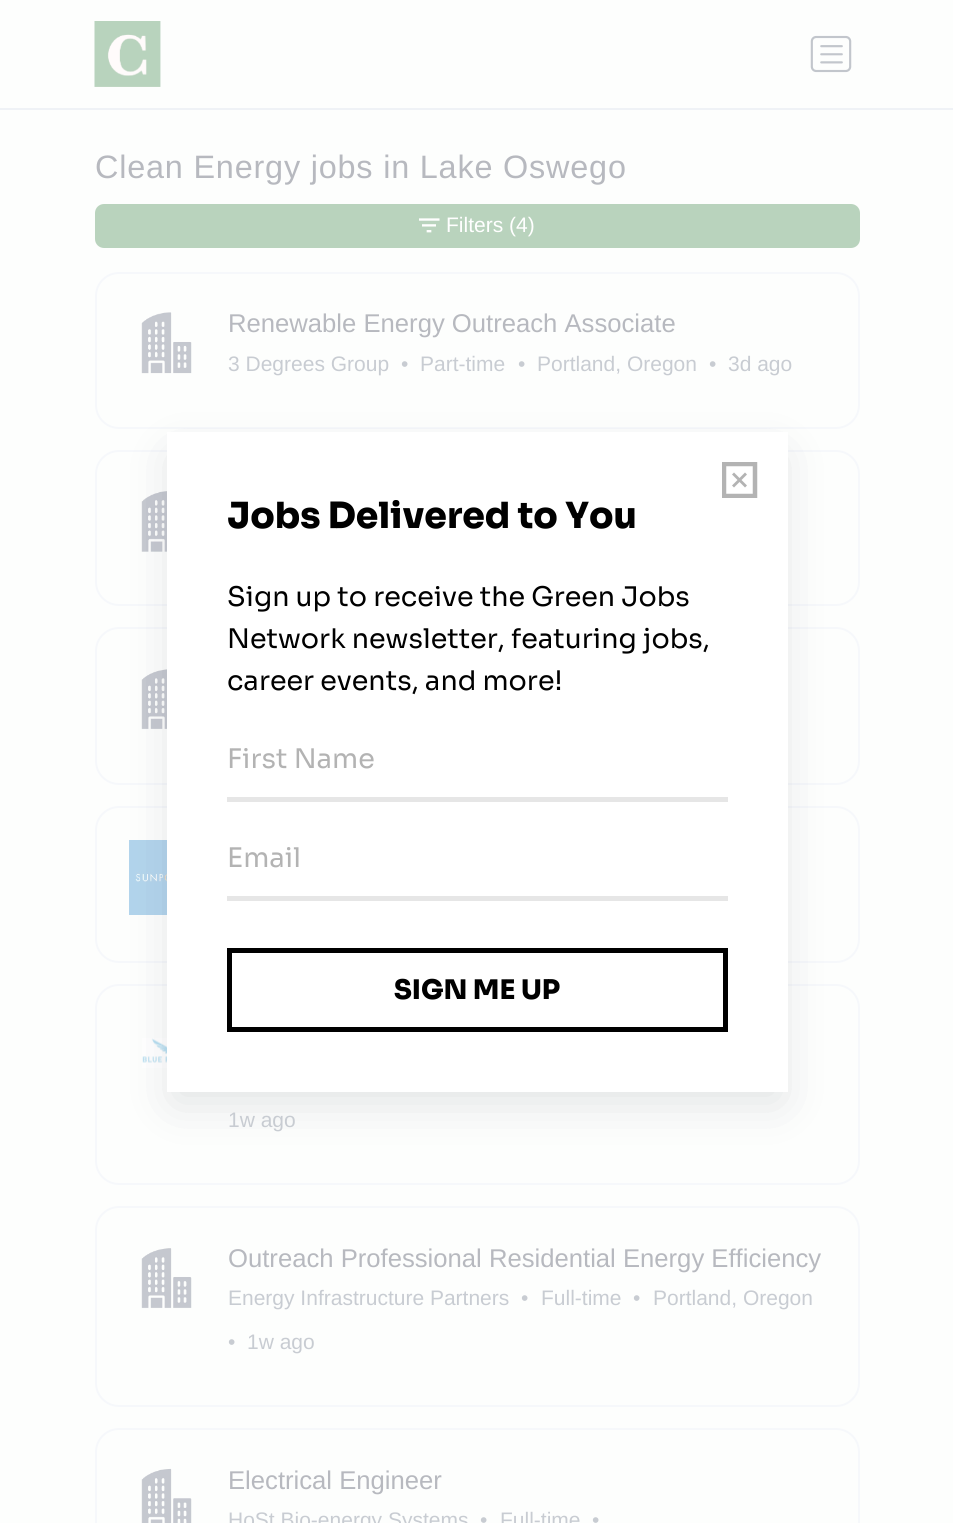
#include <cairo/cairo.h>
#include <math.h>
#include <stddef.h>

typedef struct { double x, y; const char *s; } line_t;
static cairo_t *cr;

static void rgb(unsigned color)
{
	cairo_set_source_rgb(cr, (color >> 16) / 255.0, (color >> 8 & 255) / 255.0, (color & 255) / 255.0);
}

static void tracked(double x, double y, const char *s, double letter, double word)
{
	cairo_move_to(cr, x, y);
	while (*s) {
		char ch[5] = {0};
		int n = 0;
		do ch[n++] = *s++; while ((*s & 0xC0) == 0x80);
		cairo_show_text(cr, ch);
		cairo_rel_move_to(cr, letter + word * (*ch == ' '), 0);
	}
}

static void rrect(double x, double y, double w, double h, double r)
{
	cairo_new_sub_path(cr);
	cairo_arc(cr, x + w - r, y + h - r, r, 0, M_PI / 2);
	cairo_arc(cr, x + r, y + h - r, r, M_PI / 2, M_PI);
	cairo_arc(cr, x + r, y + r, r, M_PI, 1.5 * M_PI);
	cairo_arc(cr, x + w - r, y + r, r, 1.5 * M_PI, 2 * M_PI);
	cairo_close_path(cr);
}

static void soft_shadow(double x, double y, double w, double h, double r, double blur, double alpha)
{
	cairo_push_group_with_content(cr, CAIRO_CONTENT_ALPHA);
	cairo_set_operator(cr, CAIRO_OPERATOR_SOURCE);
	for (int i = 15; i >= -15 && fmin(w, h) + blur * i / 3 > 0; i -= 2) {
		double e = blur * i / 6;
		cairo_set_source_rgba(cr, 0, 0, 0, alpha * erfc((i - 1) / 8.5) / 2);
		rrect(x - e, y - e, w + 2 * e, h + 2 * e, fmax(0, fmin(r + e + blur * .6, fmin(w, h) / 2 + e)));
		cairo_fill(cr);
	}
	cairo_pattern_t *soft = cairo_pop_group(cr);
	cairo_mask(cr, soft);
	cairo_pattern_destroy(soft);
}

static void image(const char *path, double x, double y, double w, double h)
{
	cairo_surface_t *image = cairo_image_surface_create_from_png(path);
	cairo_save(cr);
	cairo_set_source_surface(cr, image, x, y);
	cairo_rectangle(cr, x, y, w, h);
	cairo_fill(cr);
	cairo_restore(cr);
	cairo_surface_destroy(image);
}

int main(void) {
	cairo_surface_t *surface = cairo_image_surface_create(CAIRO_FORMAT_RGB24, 953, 1523);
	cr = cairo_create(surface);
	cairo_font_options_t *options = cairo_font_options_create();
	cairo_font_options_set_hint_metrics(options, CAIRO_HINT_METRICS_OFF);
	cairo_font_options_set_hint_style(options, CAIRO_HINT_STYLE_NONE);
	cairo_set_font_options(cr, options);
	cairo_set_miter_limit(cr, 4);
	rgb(0xfdfefd);
	cairo_paint(cr);
	rgb(0xeff2f6);
	cairo_rectangle(cr, 0, 108, 953, 2);
	cairo_fill(cr);
	image("img/1.png", 94, 21, 67, 66);
	image("img/2.png", 810, 35, 42, 38);
	rgb(0xb9d3bd);
	rrect(96, 205, 763, 42, 8);
	cairo_fill_preserve(cr);
	cairo_stroke(cr);
	image("img/3.png", 419, 218, 21, 15);
	rrect(96, 273, 763, 155, 23);
	rgb(0xf6f8fb);
	cairo_stroke(cr);
	image("img/4.png", 141, 312, 51, 62);
	rrect(96, 451, 763, 154, 23);
	cairo_stroke(cr);
	image("img/5.png", 141, 491, 26, 61);
	rrect(96, 628, 763, 156, 23);
	cairo_stroke(cr);
	image("img/6.png", 141, 669, 26, 61);
	rrect(96, 807, 763, 155, 23);
	cairo_stroke(cr);
	image("img/7.png", 129, 840, 38, 75);
	rrect(96, 985, 763, 199, 23);
	cairo_stroke(cr);
	image("img/8.png", 142, 1038, 25, 30);
	rrect(96, 1207, 763, 199, 23);
	cairo_stroke(cr);
	image("img/9.png", 141, 1248, 51, 61);
	rrect(96, 1429, 763, 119, 23);
	cairo_stroke(cr);
	image("img/10.png", 141, 1468, 51, 55);
	rgb(0x363d4d);
	soft_shadow(174, 456, 606, 645, 0, 24, 0.15);
	rgb(0xffffff);
	cairo_rectangle(cr, 167, 432, 621, 660);
	cairo_fill(cr);
	cairo_save(cr);
	cairo_rectangle(cr, 722, 462, 36, 36);
	cairo_clip(cr);
	cairo_new_path(cr);
	cairo_move_to(cr, 755, 464);
	cairo_line_to(cr, 755, 496);
	cairo_line_to(cr, 724, 496);
	cairo_line_to(cr, 724, 464);
	cairo_close_path(cr);
	rgb(0xb3b3b3);
	cairo_set_line_width(cr, 4.5);
	cairo_stroke(cr);
	cairo_restore(cr);
	rgb(0xb3b3b3);
	cairo_new_path(cr);
	cairo_move_to(cr, 747, 474.5);
	cairo_line_to(cr, 745, 472.5);
	cairo_line_to(cr, 739.5, 478);
	cairo_line_to(cr, 734, 472.5);
	cairo_line_to(cr, 732, 474.5);
	cairo_line_to(cr, 737.5, 480);
	cairo_line_to(cr, 732, 485.5);
	cairo_line_to(cr, 734, 487.5);
	cairo_line_to(cr, 739.5, 482);
	cairo_line_to(cr, 745, 487.5);
	cairo_line_to(cr, 747, 485.5);
	cairo_line_to(cr, 741.5, 480);
	cairo_close_path(cr);
	cairo_fill(cr);
	rgb(0xe6e6e6);
	cairo_rectangle(cr, 227, 797, 501, 5);
	cairo_fill(cr);
	cairo_rectangle(cr, 227, 896, 501, 5);
	cairo_fill(cr);
	cairo_rectangle(cr, 229.5, 950.5, 496, 79);
	rgb(0x000000);
	cairo_set_line_width(cr, 5);
	cairo_stroke(cr);
	cairo_select_font_face(cr, "Liberation Sans", CAIRO_FONT_SLANT_NORMAL, CAIRO_FONT_WEIGHT_NORMAL);
	cairo_set_font_size(cr, 32.4);
	rgb(0xb7b9bf);
	tracked(95, 178, "Clean Energy jobs in Lake Oswego", 0.8, 0);
	cairo_set_font_size(cr, 21);
	rgb(0xffffff);
	cairo_move_to(cr, 446, 232);
	cairo_show_text(cr, "Filters (4)");
	cairo_set_font_size(cr, 25.65);
	rgb(0xb7b9bf);
	cairo_move_to(cr, 228, 332);
	cairo_show_text(cr, "Renewable Energy Outreach Associate");
	cairo_set_font_size(cr, 21);
	rgb(0xc8ccd2);
	{
		static const line_t items[] = {
			{228, 371, "3 Degrees Group"},
			{401, 371, "•"},
			{420, 371, "Part-time"},
			{518, 371, "•"},
			{537, 371, "Portland, Oregon"},
			{709, 371, "•"},
			{728, 371, "3d ago"},
			{228, 1127, "1w ago"},
		};
		for (size_t i = 0; i < sizeof items / sizeof *items; i++) {
			cairo_move_to(cr, items[i].x, items[i].y);
			cairo_show_text(cr, items[i].s);
		}
	}
	cairo_set_font_size(cr, 25.65);
	rgb(0xb7b9bf);
	cairo_move_to(cr, 228, 1267);
	cairo_show_text(cr, "Outreach Professional Residential Energy Efficiency");
	cairo_set_font_size(cr, 21);
	rgb(0xc8ccd2);
	{
		static const line_t items[] = {
			{228, 1305, "Energy Infrastructure Partners"},
			{521, 1305, "•"},
			{541, 1305, "Full-time"},
			{633, 1305, "•"},
			{653, 1305, "Portland, Oregon"},
			{228, 1349, "•"},
			{247, 1349, "1w ago"},
		};
		for (size_t i = 0; i < sizeof items / sizeof *items; i++) {
			cairo_move_to(cr, items[i].x, items[i].y);
			cairo_show_text(cr, items[i].s);
		}
	}
	cairo_set_font_size(cr, 25.65);
	rgb(0xb7b9bf);
	cairo_move_to(cr, 228, 1489);
	cairo_show_text(cr, "Electrical Engineer");
	cairo_set_font_size(cr, 21);
	rgb(0xc8ccd2);
	{
		static const line_t items[] = {
			{228, 1527, "HoSt Bio-energy Systems"},
			{480, 1527, "•"},
			{500, 1527, "Full-time"},
			{592, 1527, "•"},
		};
		for (size_t i = 0; i < sizeof items / sizeof *items; i++) {
			cairo_move_to(cr, items[i].x, items[i].y);
			cairo_show_text(cr, items[i].s);
		}
	}
	cairo_select_font_face(cr, "Sora ExtraBold", CAIRO_FONT_SLANT_NORMAL, CAIRO_FONT_WEIGHT_NORMAL);
	cairo_set_font_size(cr, 36);
	rgb(0x000000);
	cairo_move_to(cr, 227, 528);
	cairo_show_text(cr, "Jobs Delivered to You");
	cairo_select_font_face(cr, "Sora", CAIRO_FONT_SLANT_NORMAL, CAIRO_FONT_WEIGHT_NORMAL);
	cairo_set_font_size(cr, 27);
	{
		static const line_t items[] = {
			{227, 606, "Sign up to receive the Green Jobs"},
			{227, 648, "Network newsletter, featuring jobs,"},
			{227, 690, "career events, and more!"},
		};
		for (size_t i = 0; i < sizeof items / sizeof *items; i++) {
			cairo_move_to(cr, items[i].x, items[i].y);
			cairo_show_text(cr, items[i].s);
		}
	}
	rgb(0xb3b3b3);
	cairo_move_to(cr, 227, 768);
	cairo_show_text(cr, "First Name");
	cairo_move_to(cr, 227, 867);
	cairo_show_text(cr, "Email");
	cairo_select_font_face(cr, "Sora ExtraBold", CAIRO_FONT_SLANT_NORMAL, CAIRO_FONT_WEIGHT_NORMAL);
	rgb(0x000000);
	cairo_move_to(cr, 394, 999);
	cairo_show_text(cr, "SIGN ME UP");
	cairo_surface_write_to_png(surface, "page.png");
	cairo_font_options_destroy(options);
	cairo_destroy(cr);
	cairo_surface_destroy(surface);
	return 0;
}
